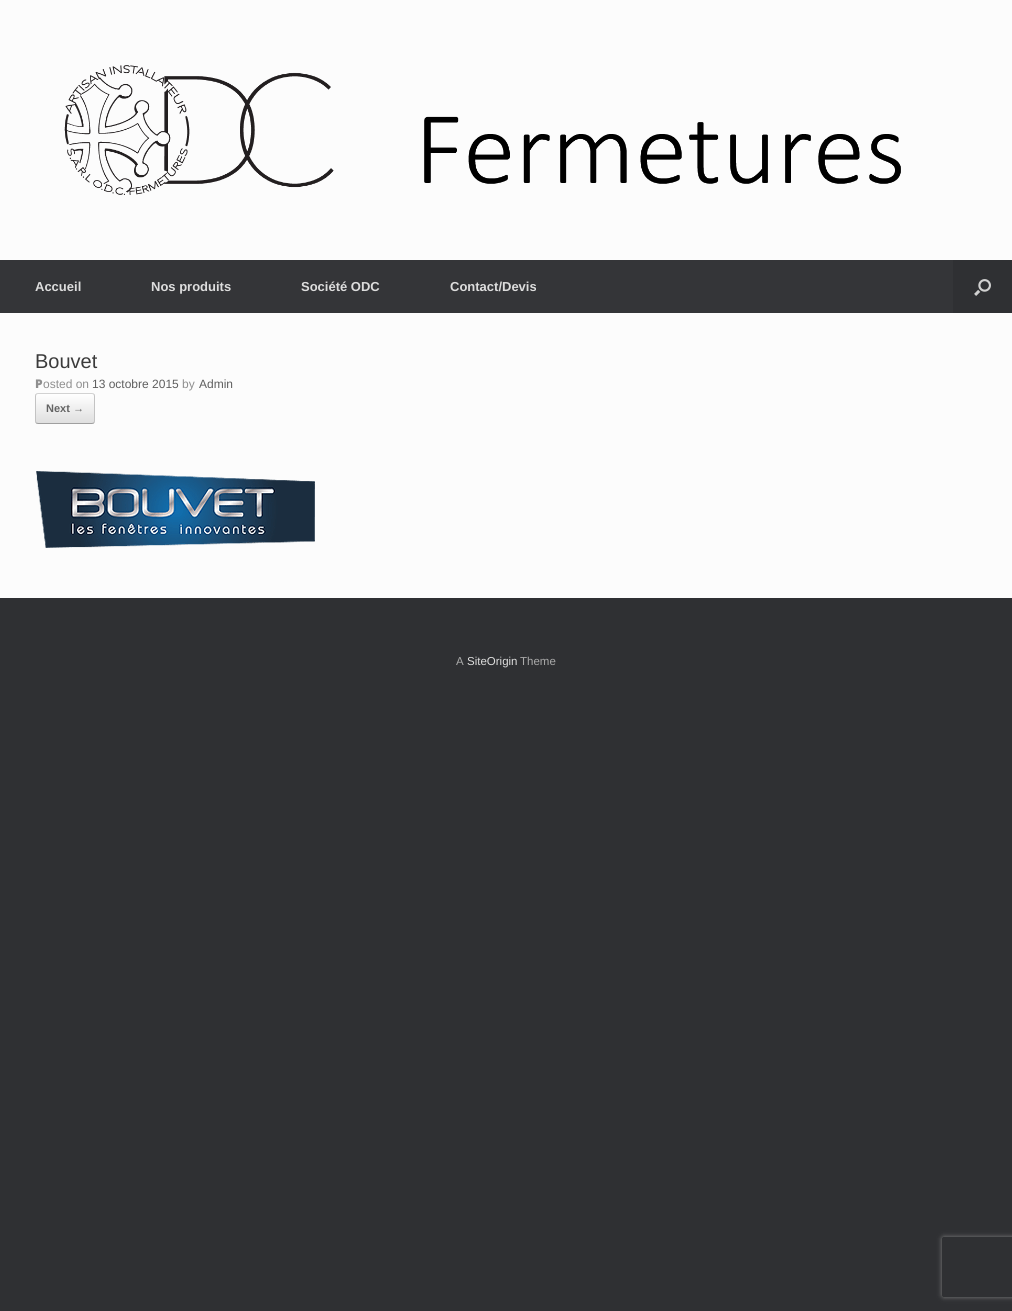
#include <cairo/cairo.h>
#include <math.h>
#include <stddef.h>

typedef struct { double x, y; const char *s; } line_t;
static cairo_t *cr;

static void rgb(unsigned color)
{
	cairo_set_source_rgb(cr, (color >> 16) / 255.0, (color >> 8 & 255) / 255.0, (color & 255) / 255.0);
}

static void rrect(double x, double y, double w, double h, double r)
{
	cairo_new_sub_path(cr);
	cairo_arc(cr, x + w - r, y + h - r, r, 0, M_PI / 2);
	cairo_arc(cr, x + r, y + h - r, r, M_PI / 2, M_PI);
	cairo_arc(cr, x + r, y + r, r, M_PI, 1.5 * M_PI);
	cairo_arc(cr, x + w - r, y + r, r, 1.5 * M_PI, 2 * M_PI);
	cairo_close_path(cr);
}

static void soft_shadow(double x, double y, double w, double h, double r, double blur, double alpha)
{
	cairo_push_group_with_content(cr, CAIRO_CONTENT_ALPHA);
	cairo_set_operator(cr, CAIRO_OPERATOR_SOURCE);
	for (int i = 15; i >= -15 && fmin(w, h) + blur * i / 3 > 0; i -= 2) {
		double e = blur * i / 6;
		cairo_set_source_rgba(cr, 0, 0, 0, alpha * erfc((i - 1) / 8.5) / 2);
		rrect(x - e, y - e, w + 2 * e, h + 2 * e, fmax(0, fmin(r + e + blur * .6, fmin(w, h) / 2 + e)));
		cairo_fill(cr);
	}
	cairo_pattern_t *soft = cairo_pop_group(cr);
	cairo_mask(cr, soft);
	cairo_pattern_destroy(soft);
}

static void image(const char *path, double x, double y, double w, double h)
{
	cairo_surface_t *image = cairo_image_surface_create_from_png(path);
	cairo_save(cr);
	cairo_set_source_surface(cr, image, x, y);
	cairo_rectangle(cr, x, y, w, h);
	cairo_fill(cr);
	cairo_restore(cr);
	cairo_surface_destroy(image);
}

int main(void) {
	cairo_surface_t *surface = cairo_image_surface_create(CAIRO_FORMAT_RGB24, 1012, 1311);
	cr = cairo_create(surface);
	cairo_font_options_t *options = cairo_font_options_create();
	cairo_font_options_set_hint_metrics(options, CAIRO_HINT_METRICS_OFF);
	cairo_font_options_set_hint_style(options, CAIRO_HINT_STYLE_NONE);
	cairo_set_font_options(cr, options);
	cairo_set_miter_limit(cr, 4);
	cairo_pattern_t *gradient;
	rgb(0x2f3033);
	cairo_paint(cr);
	rgb(0xfcfcfc);
	cairo_rectangle(cr, 0, 0, 1012, 260);
	cairo_fill(cr);
	image("img/1.png", 64, 65, 837, 130);
	rgb(0x343538);
	cairo_rectangle(cr, 0, 260, 953, 53);
	cairo_fill(cr);
	image("img/2.png", 974, 279, 17, 17);
	rgb(0xfcfcfc);
	cairo_rectangle(cr, 0, 313, 1012, 285);
	cairo_fill(cr);
	cairo_save(cr);
	rrect(35, 393, 60, 31, 3);
	cairo_clip(cr);
	gradient = cairo_pattern_create_linear(36, 423, 36, 394);
	cairo_pattern_add_color_stop_rgba(gradient, 0, 0.875, 0.875, 0.875, 1);
	cairo_pattern_add_color_stop_rgba(gradient, 1, 1, 1, 1, 1);
	cairo_set_source(cr, gradient);
	cairo_pattern_destroy(gradient);
	cairo_rectangle(cr, 35, 394, 60, 29);
	cairo_fill(cr);
	cairo_restore(cr);
	cairo_new_path(cr);
	cairo_move_to(cr, 36, 394);
	cairo_line_to(cr, 38, 393.5);
	cairo_line_to(cr, 92, 393.5);
	cairo_line_to(cr, 94, 394);
	rgb(0xd2d2d2);
	cairo_set_line_width(cr, 1);
	cairo_stroke(cr);
	cairo_new_path(cr);
	cairo_move_to(cr, 94, 394);
	cairo_curve_to(cr, 94, 394.5, 94.5, 395.5, 94.5, 396);
	cairo_line_to(cr, 94.5, 421);
	cairo_curve_to(cr, 94.5, 421.5, 94, 422.5, 94, 423);
	rgb(0xc3c3c3);
	cairo_stroke(cr);
	cairo_new_path(cr);
	cairo_move_to(cr, 94, 423);
	cairo_line_to(cr, 92, 423.5);
	cairo_line_to(cr, 38, 423.5);
	cairo_line_to(cr, 36, 423);
	rgb(0x9f9f9f);
	cairo_stroke(cr);
	cairo_new_path(cr);
	cairo_move_to(cr, 36, 423);
	cairo_curve_to(cr, 36, 422.5, 35.5, 421.5, 35.5, 421);
	cairo_line_to(cr, 35.5, 396);
	cairo_curve_to(cr, 35.5, 395.5, 36, 394.5, 36, 394);
	rgb(0xc3c3c3);
	cairo_stroke(cr);
	image("img/3.png", 36, 471, 279, 77);
	cairo_save(cr);
	cairo_set_fill_rule(cr, CAIRO_FILL_RULE_EVEN_ODD);
	cairo_new_path(cr);
	cairo_move_to(cr, 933, 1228);
	cairo_line_to(cr, 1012, 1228);
	cairo_line_to(cr, 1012, 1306);
	cairo_line_to(cr, 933, 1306);
	cairo_close_path(cr);
	cairo_move_to(cr, 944, 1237);
	cairo_line_to(cr, 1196, 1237);
	cairo_curve_to(cr, 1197, 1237, 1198, 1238, 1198, 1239);
	cairo_line_to(cr, 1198, 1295);
	cairo_curve_to(cr, 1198, 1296, 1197, 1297, 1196, 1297);
	cairo_line_to(cr, 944, 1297);
	cairo_curve_to(cr, 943, 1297, 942, 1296, 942, 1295);
	cairo_line_to(cr, 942, 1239);
	cairo_curve_to(cr, 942, 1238, 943, 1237, 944, 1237);
	cairo_close_path(cr);
	cairo_clip(cr);
	rgb(0x808080);
	soft_shadow(942, 1237, 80, 60, 2, 2.5, 1);
	cairo_restore(cr);
	cairo_select_font_face(cr, "Liberation Sans", CAIRO_FONT_SLANT_NORMAL, CAIRO_FONT_WEIGHT_BOLD);
	cairo_set_font_size(cr, 13);
	rgb(0xdddddd);
	{
		static const line_t items[] = {
			{35, 291, "Accueil"},
			{151, 291, "Nos produits"},
			{301, 291, "Société ODC"},
			{450, 291, "Contact/Devis"},
		};
		for (size_t i = 0; i < sizeof items / sizeof *items; i++) {
			cairo_move_to(cr, items[i].x, items[i].y);
			cairo_show_text(cr, items[i].s);
		}
	}
	cairo_select_font_face(cr, "Liberation Sans", CAIRO_FONT_SLANT_NORMAL, CAIRO_FONT_WEIGHT_NORMAL);
	cairo_set_font_size(cr, 20);
	rgb(0x3b3b3b);
	cairo_move_to(cr, 35, 368);
	cairo_show_text(cr, "Bouvet");
	cairo_select_font_face(cr, "Noto Sans Black", CAIRO_FONT_SLANT_NORMAL, CAIRO_FONT_WEIGHT_NORMAL);
	cairo_set_font_size(cr, 12);
	rgb(0x8f8f8f);
	cairo_move_to(cr, 35, 388);
	cairo_show_text(cr, "P");
	cairo_select_font_face(cr, "Liberation Sans", CAIRO_FONT_SLANT_NORMAL, CAIRO_FONT_WEIGHT_NORMAL);
	cairo_move_to(cr, 43, 388);
	cairo_show_text(cr, "osted on");
	rgb(0x5e5e5e);
	cairo_move_to(cr, 92, 388);
	cairo_show_text(cr, "13 octobre 2015");
	rgb(0x8f8f8f);
	cairo_move_to(cr, 182, 388);
	cairo_show_text(cr, "by");
	rgb(0x5e5e5e);
	cairo_move_to(cr, 199, 388);
	cairo_show_text(cr, "Admin");
	cairo_select_font_face(cr, "Liberation Sans", CAIRO_FONT_SLANT_NORMAL, CAIRO_FONT_WEIGHT_BOLD);
	cairo_set_font_size(cr, 11);
	rgb(0x646464);
	cairo_move_to(cr, 46, 412);
	cairo_show_text(cr, "Next →");
	cairo_select_font_face(cr, "Liberation Sans", CAIRO_FONT_SLANT_NORMAL, CAIRO_FONT_WEIGHT_NORMAL);
	cairo_set_font_size(cr, 11.5);
	rgb(0xaaaaaa);
	cairo_move_to(cr, 456, 665);
	cairo_show_text(cr, "A");
	rgb(0xdddddd);
	cairo_move_to(cr, 467, 665);
	cairo_show_text(cr, "SiteOrigin");
	rgb(0xaaaaaa);
	cairo_move_to(cr, 520, 665);
	cairo_show_text(cr, "Theme");
	cairo_surface_write_to_png(surface, "page.png");
	cairo_font_options_destroy(options);
	cairo_destroy(cr);
	cairo_surface_destroy(surface);
	return 0;
}
